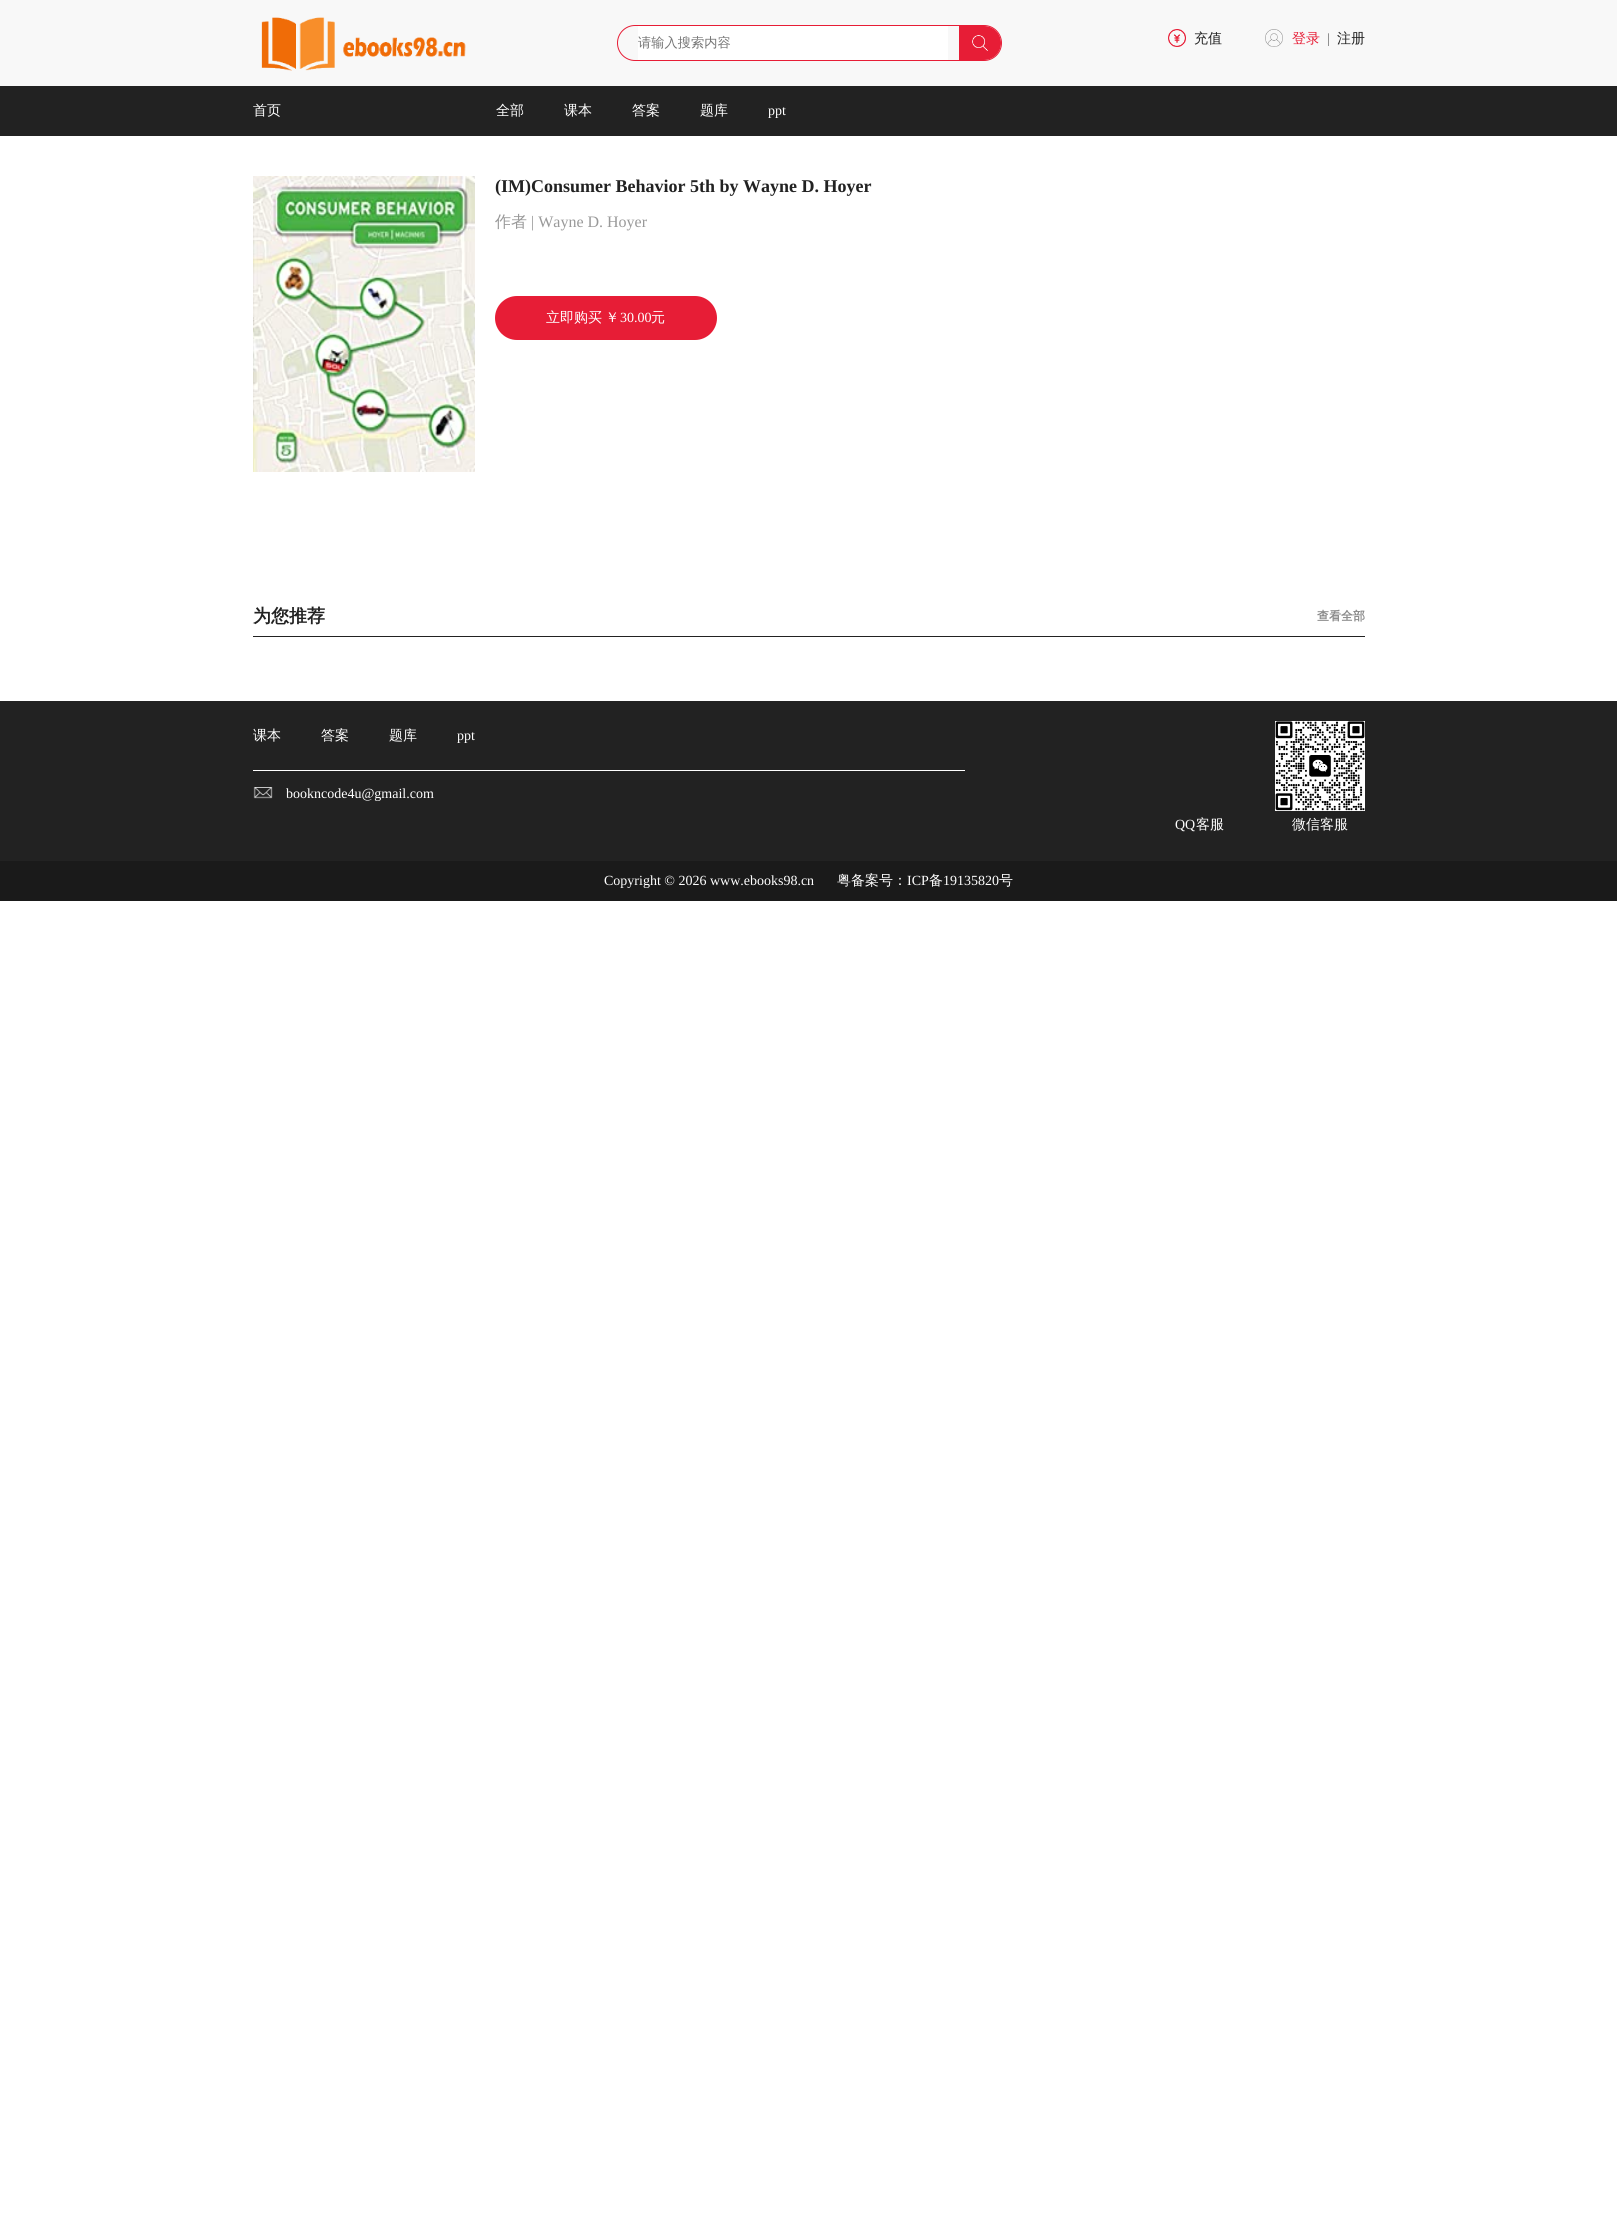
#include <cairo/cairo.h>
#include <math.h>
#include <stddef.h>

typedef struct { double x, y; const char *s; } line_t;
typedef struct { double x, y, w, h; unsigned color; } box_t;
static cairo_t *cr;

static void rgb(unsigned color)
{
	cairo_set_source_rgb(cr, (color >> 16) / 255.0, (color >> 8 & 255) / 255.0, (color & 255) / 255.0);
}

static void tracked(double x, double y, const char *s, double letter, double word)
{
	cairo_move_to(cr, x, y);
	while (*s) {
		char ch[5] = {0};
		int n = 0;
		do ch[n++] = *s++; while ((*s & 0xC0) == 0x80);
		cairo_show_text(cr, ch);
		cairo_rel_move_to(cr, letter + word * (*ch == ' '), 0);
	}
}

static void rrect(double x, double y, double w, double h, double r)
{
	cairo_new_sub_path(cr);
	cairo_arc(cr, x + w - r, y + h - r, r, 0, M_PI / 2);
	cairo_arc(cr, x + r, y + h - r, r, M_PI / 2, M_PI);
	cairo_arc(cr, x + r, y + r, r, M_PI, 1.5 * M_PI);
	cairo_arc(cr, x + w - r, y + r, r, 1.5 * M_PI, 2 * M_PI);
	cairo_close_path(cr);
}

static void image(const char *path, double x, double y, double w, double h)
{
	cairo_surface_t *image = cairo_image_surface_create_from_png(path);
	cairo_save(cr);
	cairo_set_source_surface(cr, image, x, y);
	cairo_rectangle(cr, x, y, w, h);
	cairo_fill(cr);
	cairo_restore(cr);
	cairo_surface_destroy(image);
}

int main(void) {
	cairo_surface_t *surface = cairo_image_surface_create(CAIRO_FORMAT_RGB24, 1617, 2234);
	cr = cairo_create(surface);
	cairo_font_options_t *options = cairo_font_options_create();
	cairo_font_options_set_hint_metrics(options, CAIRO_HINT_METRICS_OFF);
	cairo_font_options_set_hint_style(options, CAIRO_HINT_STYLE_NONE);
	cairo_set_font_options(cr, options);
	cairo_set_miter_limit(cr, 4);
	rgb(0xffffff);
	cairo_paint(cr);
	rgb(0xf8f8f8);
	cairo_rectangle(cr, 0, 0, 1617, 86);
	cairo_fill(cr);
	image("img/1.png", 261, 17, 205, 54);
	rrect(617.5, 25.5, 384, 35, 17.5);
	rgb(0xe71d36);
	cairo_set_line_width(cr, 1);
	cairo_stroke(cr);
	rgb(0xffffff);
	cairo_rectangle(cr, 638, 26, 310, 34);
	cairo_fill(cr);
	rgb(0xe71d36);
	cairo_new_path(cr);
	cairo_move_to(cr, 959, 26);
	cairo_line_to(cr, 984, 26);
	cairo_curve_to(cr, 993.5, 26, 1001, 33.5, 1001, 43);
	cairo_curve_to(cr, 1001, 52.5, 993.5, 60, 984, 60);
	cairo_line_to(cr, 959, 60);
	cairo_close_path(cr);
	cairo_fill(cr);
	image("img/2.png", 972, 35, 16, 16);
	image("img/3.png", 1168, 29, 18, 18);
	image("img/4.png", 1265, 29, 18, 18);
	rgb(0x222222);
	cairo_rectangle(cr, 0, 86, 1617, 50);
	cairo_fill(cr);
	image("img/5.png", 253, 176, 222, 296);
	rgb(0xe71d36);
	rrect(495, 296, 222, 44, 22);
	cairo_fill(cr);
	{
		static const box_t items[] = {
			{253, 636, 1112, 1, 0x222222},
			{0, 701, 1617, 160, 0x222222},
			{253, 770, 712, 1, 0xffffff},
		};
		for (size_t i = 0; i < sizeof items / sizeof *items; i++) {
			rgb(items[i].color);
			cairo_rectangle(cr, items[i].x, items[i].y, items[i].w, items[i].h);
			cairo_fill(cr);
		}
	}
	image("img/6.png", 253, 787, 20, 12);
	image("img/7.png", 1275, 721, 90, 90);
	rgb(0x1a1a1a);
	cairo_rectangle(cr, 0, 861, 1617, 40);
	cairo_fill(cr);
	cairo_select_font_face(cr, "WenQuanYi Zen Hei Medium", CAIRO_FONT_SLANT_NORMAL, CAIRO_FONT_WEIGHT_NORMAL);
	cairo_set_font_size(cr, 13.25);
	rgb(0x757575);
	cairo_move_to(cr, 638, 47);
	cairo_show_text(cr, "请输入搜索内容");
	cairo_set_font_size(cr, 14);
	rgb(0x222222);
	cairo_move_to(cr, 1194, 43);
	cairo_show_text(cr, "充值");
	rgb(0xe71d36);
	cairo_move_to(cr, 1292, 43);
	cairo_show_text(cr, "登录");
	cairo_select_font_face(cr, "Liberation Serif", CAIRO_FONT_SLANT_NORMAL, CAIRO_FONT_WEIGHT_NORMAL);
	rgb(0x666666);
	cairo_move_to(cr, 1327, 43);
	cairo_show_text(cr, "|");
	cairo_select_font_face(cr, "WenQuanYi Zen Hei Medium", CAIRO_FONT_SLANT_NORMAL, CAIRO_FONT_WEIGHT_NORMAL);
	rgb(0x222222);
	cairo_move_to(cr, 1337, 43);
	cairo_show_text(cr, "注册");
	rgb(0xffffff);
	{
		static const line_t items[] = {
			{253, 115, "首页"},
			{496, 115, "全部"},
			{564, 115, "课本"},
			{632, 115, "答案"},
			{700, 115, "题库"},
		};
		for (size_t i = 0; i < sizeof items / sizeof *items; i++) {
			cairo_move_to(cr, items[i].x, items[i].y);
			cairo_show_text(cr, items[i].s);
		}
	}
	cairo_select_font_face(cr, "Liberation Serif", CAIRO_FONT_SLANT_NORMAL, CAIRO_FONT_WEIGHT_NORMAL);
	cairo_move_to(cr, 768, 115);
	cairo_show_text(cr, "ppt");
	cairo_select_font_face(cr, "Liberation Serif", CAIRO_FONT_SLANT_NORMAL, CAIRO_FONT_WEIGHT_BOLD);
	cairo_set_font_size(cr, 18);
	rgb(0x222222);
	cairo_move_to(cr, 495, 192);
	cairo_show_text(cr, "(IM)Consumer Behavior 5th by Wayne D. Hoyer");
	cairo_select_font_face(cr, "WenQuanYi Zen Hei Medium", CAIRO_FONT_SLANT_NORMAL, CAIRO_FONT_WEIGHT_NORMAL);
	cairo_set_font_size(cr, 16);
	rgb(0x999999);
	cairo_move_to(cr, 495, 227);
	cairo_show_text(cr, "作者");
	cairo_select_font_face(cr, "Liberation Serif", CAIRO_FONT_SLANT_NORMAL, CAIRO_FONT_WEIGHT_NORMAL);
	cairo_move_to(cr, 531, 227);
	cairo_show_text(cr, "| Wayne D. Hoyer");
	cairo_select_font_face(cr, "WenQuanYi Zen Hei Medium", CAIRO_FONT_SLANT_NORMAL, CAIRO_FONT_WEIGHT_NORMAL);
	cairo_set_font_size(cr, 14);
	rgb(0xffffff);
	tracked(546, 322, "立即购买 ￥", 0, -1);
	cairo_select_font_face(cr, "Liberation Serif", CAIRO_FONT_SLANT_NORMAL, CAIRO_FONT_WEIGHT_NORMAL);
	cairo_move_to(cr, 620, 322);
	cairo_show_text(cr, "30.00");
	cairo_select_font_face(cr, "WenQuanYi Zen Hei Medium", CAIRO_FONT_SLANT_NORMAL, CAIRO_FONT_WEIGHT_NORMAL);
	cairo_move_to(cr, 651, 322);
	cairo_show_text(cr, "元");
	cairo_select_font_face(cr, "WenQuanYi Zen Hei", CAIRO_FONT_SLANT_NORMAL, CAIRO_FONT_WEIGHT_BOLD);
	cairo_set_font_size(cr, 18);
	rgb(0x222222);
	cairo_move_to(cr, 253, 622);
	cairo_show_text(cr, "为您推荐");
	cairo_set_font_size(cr, 12);
	rgb(0x8a8a8a);
	cairo_move_to(cr, 1317, 620);
	cairo_show_text(cr, "查看全部");
	cairo_select_font_face(cr, "WenQuanYi Zen Hei Medium", CAIRO_FONT_SLANT_NORMAL, CAIRO_FONT_WEIGHT_NORMAL);
	cairo_set_font_size(cr, 14);
	rgb(0xffffff);
	{
		static const line_t items[] = {
			{253, 740, "课本"},
			{321, 740, "答案"},
			{389, 740, "题库"},
		};
		for (size_t i = 0; i < sizeof items / sizeof *items; i++) {
			cairo_move_to(cr, items[i].x, items[i].y);
			cairo_show_text(cr, items[i].s);
		}
	}
	cairo_select_font_face(cr, "Liberation Serif", CAIRO_FONT_SLANT_NORMAL, CAIRO_FONT_WEIGHT_NORMAL);
	{
		static const line_t items[] = {
			{457, 740, "ppt"},
			{286, 798, "bookncode4u@gmail.com"},
			{1175, 829, "QQ"},
		};
		for (size_t i = 0; i < sizeof items / sizeof *items; i++) {
			cairo_move_to(cr, items[i].x, items[i].y);
			cairo_show_text(cr, items[i].s);
		}
	}
	cairo_select_font_face(cr, "WenQuanYi Zen Hei Medium", CAIRO_FONT_SLANT_NORMAL, CAIRO_FONT_WEIGHT_NORMAL);
	cairo_move_to(cr, 1196, 829);
	cairo_show_text(cr, "客服");
	cairo_move_to(cr, 1292, 829);
	cairo_show_text(cr, "微信客服");
	cairo_select_font_face(cr, "Liberation Serif", CAIRO_FONT_SLANT_NORMAL, CAIRO_FONT_WEIGHT_NORMAL);
	cairo_move_to(cr, 604, 885);
	cairo_show_text(cr, "Copyright © 2026 www.ebooks98.cn");
	cairo_select_font_face(cr, "WenQuanYi Zen Hei Medium", CAIRO_FONT_SLANT_NORMAL, CAIRO_FONT_WEIGHT_NORMAL);
	cairo_move_to(cr, 837, 885);
	cairo_show_text(cr, "粤备案号：");
	cairo_select_font_face(cr, "Liberation Serif", CAIRO_FONT_SLANT_NORMAL, CAIRO_FONT_WEIGHT_NORMAL);
	cairo_move_to(cr, 907, 885);
	cairo_show_text(cr, "ICP");
	cairo_select_font_face(cr, "WenQuanYi Zen Hei Medium", CAIRO_FONT_SLANT_NORMAL, CAIRO_FONT_WEIGHT_NORMAL);
	cairo_move_to(cr, 929, 885);
	cairo_show_text(cr, "备");
	cairo_select_font_face(cr, "Liberation Serif", CAIRO_FONT_SLANT_NORMAL, CAIRO_FONT_WEIGHT_NORMAL);
	cairo_move_to(cr, 943, 885);
	cairo_show_text(cr, "19135820");
	cairo_select_font_face(cr, "WenQuanYi Zen Hei Medium", CAIRO_FONT_SLANT_NORMAL, CAIRO_FONT_WEIGHT_NORMAL);
	cairo_move_to(cr, 999, 885);
	cairo_show_text(cr, "号");
	cairo_surface_write_to_png(surface, "page.png");
	cairo_font_options_destroy(options);
	cairo_destroy(cr);
	cairo_surface_destroy(surface);
	return 0;
}
